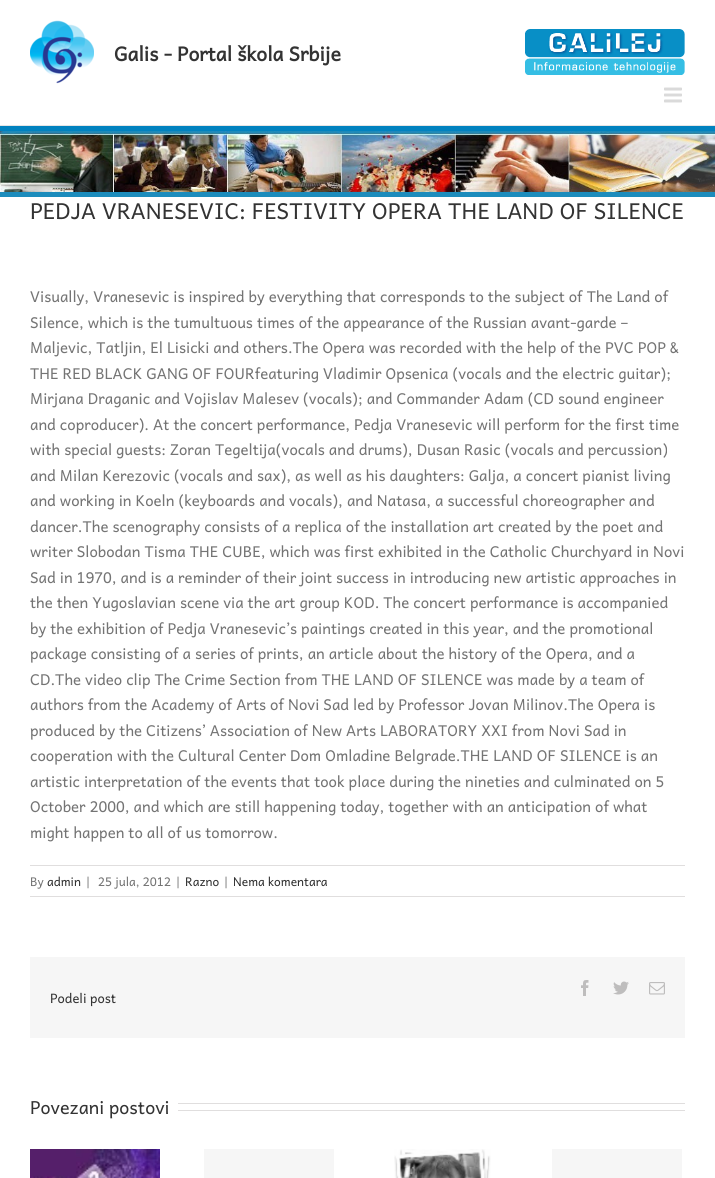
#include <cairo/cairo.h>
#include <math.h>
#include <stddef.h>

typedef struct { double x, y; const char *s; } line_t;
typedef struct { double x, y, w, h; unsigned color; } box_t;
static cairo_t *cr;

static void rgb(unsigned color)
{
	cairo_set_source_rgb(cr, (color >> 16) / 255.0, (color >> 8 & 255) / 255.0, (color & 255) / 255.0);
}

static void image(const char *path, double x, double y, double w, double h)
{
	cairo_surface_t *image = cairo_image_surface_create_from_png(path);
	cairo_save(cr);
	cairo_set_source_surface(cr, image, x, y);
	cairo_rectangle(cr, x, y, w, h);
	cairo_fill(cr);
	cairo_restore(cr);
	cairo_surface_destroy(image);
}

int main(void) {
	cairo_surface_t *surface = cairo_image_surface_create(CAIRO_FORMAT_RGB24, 715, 1178);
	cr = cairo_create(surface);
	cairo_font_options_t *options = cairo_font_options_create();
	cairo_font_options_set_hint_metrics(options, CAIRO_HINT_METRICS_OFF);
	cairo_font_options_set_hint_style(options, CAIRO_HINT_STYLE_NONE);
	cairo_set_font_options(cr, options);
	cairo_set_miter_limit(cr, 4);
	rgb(0xffffff);
	cairo_paint(cr);
	rgb(0xe5e5e5);
	cairo_rectangle(cr, 0, 125, 715, 1);
	cairo_fill(cr);
	image("img/1.png", 30, 20, 64, 64);
	image("img/2.png", 525, 29, 160, 46);
	image("img/3.png", 664, 87, 18, 16);
	rgb(0x0082bf);
	cairo_rectangle(cr, 0, 126, 715, 5);
	cairo_fill(cr);
	image("img/4.png", 0, 131, 715, 61);
	{
		static const box_t items[] = {
			{0, 192, 715, 5, 0x1c8cbc},
			{30, 865, 655, 1, 0xe0dede},
			{30, 896, 655, 1, 0xe0dede},
			{30, 957, 655, 81, 0xf6f6f6},
		};
		for (size_t i = 0; i < sizeof items / sizeof *items; i++) {
			rgb(items[i].color);
			cairo_rectangle(cr, items[i].x, items[i].y, items[i].w, items[i].h);
			cairo_fill(cr);
		}
	}
	image("img/5.png", 581, 980, 8, 16);
	image("img/6.png", 613, 981, 16, 14);
	image("img/7.png", 649, 982, 16, 13);
	rgb(0xe0dede);
	cairo_rectangle(cr, 178, 1103, 507, 1);
	cairo_fill(cr);
	cairo_rectangle(cr, 178, 1110, 507, 1);
	cairo_fill(cr);
	image("img/8.png", 30, 1149, 130, 29);
	rgb(0xf6f6f6);
	cairo_rectangle(cr, 204, 1149, 130, 29);
	cairo_fill(cr);
	image("img/9.png", 394, 1149, 97, 29);
	cairo_rectangle(cr, 552, 1149, 130, 29);
	cairo_fill(cr);
	cairo_select_font_face(cr, "Andika", CAIRO_FONT_SLANT_NORMAL, CAIRO_FONT_WEIGHT_BOLD);
	cairo_set_font_size(cr, 19.5);
	rgb(0x333333);
	cairo_move_to(cr, 114, 61);
	cairo_show_text(cr, "Galis - Portal škola Srbije");
	cairo_select_font_face(cr, "Andika", CAIRO_FONT_SLANT_NORMAL, CAIRO_FONT_WEIGHT_NORMAL);
	cairo_set_font_size(cr, 22);
	cairo_move_to(cr, 30, 219);
	cairo_show_text(cr, "PEDJA VRANESEVIC: FESTIVITY OPERA THE LAND OF SILENCE");
	cairo_set_font_size(cr, 15);
	rgb(0x747474);
	{
		static const line_t items[] = {
			{30, 302, "Visually, Vranesevic is inspired by everything that corresponds to the subject of The Land of"},
			{30, 328, "Silence, which is the tumultuous times of the appearance of the Russian avant-garde –"},
			{30, 353, "Maljevic, Tatljin, El Lisicki and others.The Opera was recorded with the help of the PVC POP &"},
			{30, 379, "THE RED BLACK GANG OF FOURfeaturing Vladimir Opsenica (vocals and the electric guitar);"},
			{30, 404, "Mirjana Draganic and Vojislav Malesev (vocals); and Commander Adam (CD sound engineer"},
			{30, 430, "and coproducer). At the concert performance, Pedja Vranesevic will perform for the first time"},
			{30, 455, "with special guests: Zoran Tegeltija(vocals and drums), Dusan Rasic (vocals and percussion)"},
			{30, 481, "and Milan Kerezovic (vocals and sax), as well as his daughters: Galja, a concert pianist living"},
			{30, 506, "and working in Koeln (keyboards and vocals), and Natasa, a successful choreographer and"},
			{30, 532, "dancer.The scenography consists of a replica of the installation art created by the poet and"},
			{30, 557, "writer Slobodan Tisma THE CUBE, which was first exhibited in the Catholic Churchyard in Novi"},
			{30, 583, "Sad in 1970, and is a reminder of their joint success in introducing new artistic approaches in"},
			{30, 608, "the then Yugoslavian scene via the art group KOD. The concert performance is accompanied"},
			{30, 634, "by the exhibition of Pedja Vranesevic’s paintings created in this year, and the promotional"},
			{30, 659, "package consisting of a series of prints, an article about the history of the Opera, and a"},
			{30, 685, "CD.The video clip The Crime Section from THE LAND OF SILENCE was made by a team of"},
			{30, 710, "authors from the Academy of Arts of Novi Sad led by Professor Jovan Milinov.The Opera is"},
			{30, 736, "produced by the Citizens’ Association of New Arts LABORATORY XXI from Novi Sad in"},
			{30, 761, "cooperation with the Cultural Center Dom Omladine Belgrade.THE LAND OF SILENCE is an"},
			{30, 787, "artistic interpretation of the events that took place during the nineties and culminated on 5"},
			{30, 812, "October 2000, and which are still happening today, together with an anticipation of what"},
			{30, 838, "might happen to all of us tomorrow."},
		};
		for (size_t i = 0; i < sizeof items / sizeof *items; i++) {
			cairo_move_to(cr, items[i].x, items[i].y);
			cairo_show_text(cr, items[i].s);
		}
	}
	cairo_set_font_size(cr, 12);
	cairo_move_to(cr, 30, 886);
	cairo_show_text(cr, "By");
	rgb(0x333333);
	cairo_move_to(cr, 47, 886);
	cairo_show_text(cr, "admin");
	rgb(0x747474);
	{
		static const line_t items[] = {
			{86, 886, "|"},
			{98, 886, "25 jula, 2012"},
			{176, 886, "|"},
		};
		for (size_t i = 0; i < sizeof items / sizeof *items; i++) {
			cairo_move_to(cr, items[i].x, items[i].y);
			cairo_show_text(cr, items[i].s);
		}
	}
	rgb(0x333333);
	cairo_move_to(cr, 185, 886);
	cairo_show_text(cr, "Razno");
	rgb(0x747474);
	cairo_move_to(cr, 224, 886);
	cairo_show_text(cr, "|");
	rgb(0x333333);
	cairo_move_to(cr, 233, 886);
	cairo_show_text(cr, "Nema komentara");
	cairo_set_font_size(cr, 13);
	cairo_move_to(cr, 50, 1003);
	cairo_show_text(cr, "Podeli post");
	cairo_set_font_size(cr, 18);
	cairo_move_to(cr, 30, 1114);
	cairo_show_text(cr, "Povezani postovi");
	cairo_surface_write_to_png(surface, "page.png");
	cairo_font_options_destroy(options);
	cairo_destroy(cr);
	cairo_surface_destroy(surface);
	return 0;
}
